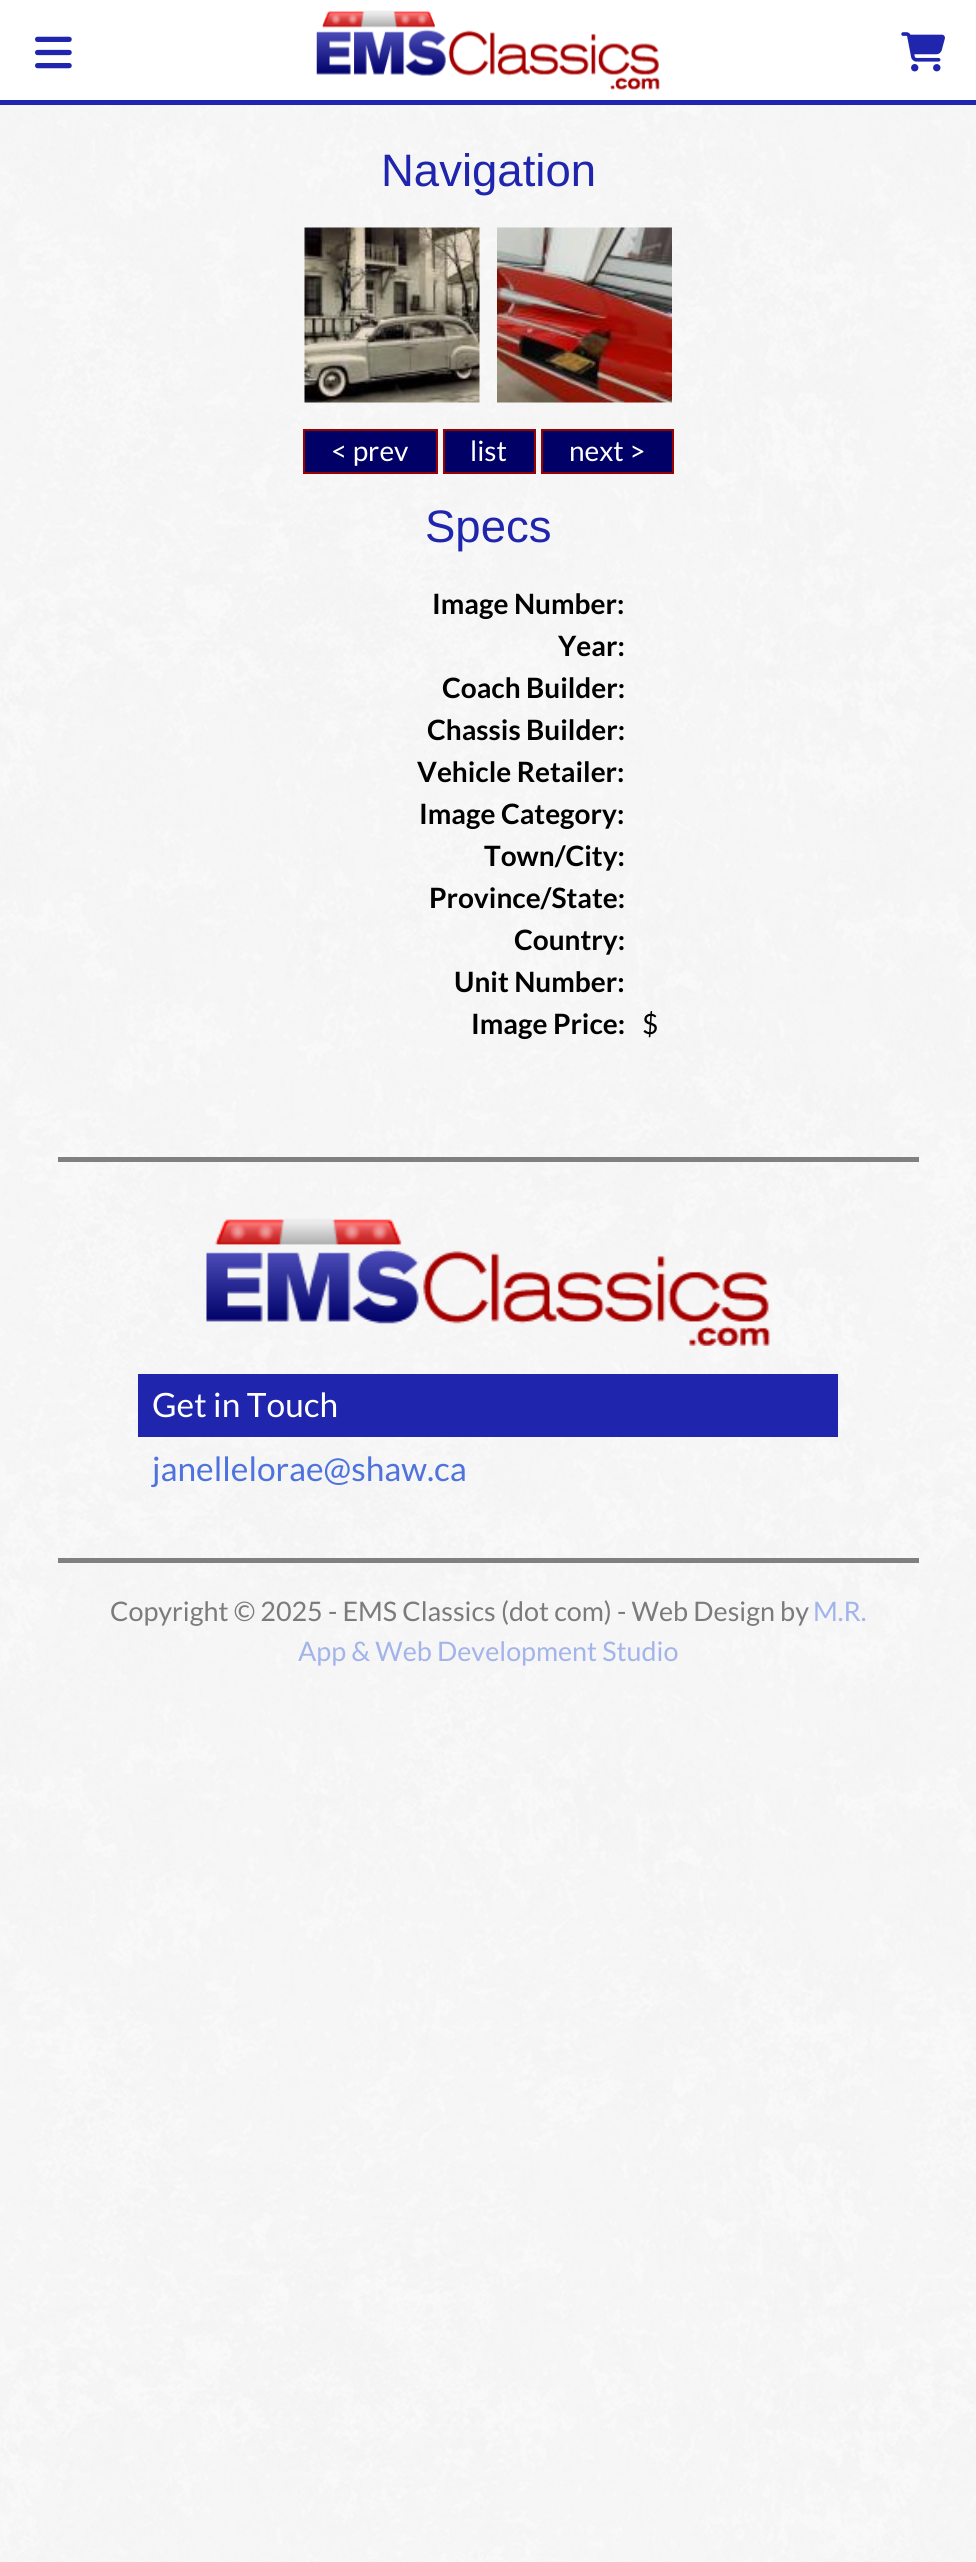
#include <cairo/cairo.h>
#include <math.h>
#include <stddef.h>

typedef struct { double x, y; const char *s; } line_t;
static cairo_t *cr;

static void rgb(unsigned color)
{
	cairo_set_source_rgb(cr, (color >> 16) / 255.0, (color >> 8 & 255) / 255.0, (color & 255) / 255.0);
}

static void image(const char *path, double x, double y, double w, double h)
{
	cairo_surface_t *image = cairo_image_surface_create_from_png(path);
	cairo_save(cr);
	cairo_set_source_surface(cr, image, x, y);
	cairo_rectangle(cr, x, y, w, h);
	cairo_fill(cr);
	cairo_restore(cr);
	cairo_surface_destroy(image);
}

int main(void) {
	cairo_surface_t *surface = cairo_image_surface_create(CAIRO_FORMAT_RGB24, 976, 2562);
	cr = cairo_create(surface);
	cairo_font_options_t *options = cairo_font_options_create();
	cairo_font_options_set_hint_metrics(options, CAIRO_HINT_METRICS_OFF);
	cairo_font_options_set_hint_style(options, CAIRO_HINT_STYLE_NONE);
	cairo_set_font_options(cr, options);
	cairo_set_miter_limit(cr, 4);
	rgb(0xffffff);
	cairo_paint(cr);
	image("img/1.png", 0, 105, 976, 2457);
	rgb(0x1f25ad);
	cairo_rectangle(cr, 0, 100, 976, 5);
	cairo_fill(cr);
	image("img/2.png", 35, 36, 37, 33);
	image("img/3.png", 316, 10, 344, 80);
	image("img/4.png", 901, 32, 44, 40);
	image("img/5.png", 304, 227, 176, 176);
	image("img/6.png", 497, 227, 175, 176);
	rgb(0x000066);
	cairo_rectangle(cr, 304, 430, 133, 43);
	cairo_fill_preserve(cr);
	rgb(0x990000);
	cairo_stroke(cr);
	rgb(0x000066);
	cairo_rectangle(cr, 444, 430, 91, 43);
	cairo_fill_preserve(cr);
	rgb(0x990000);
	cairo_stroke(cr);
	rgb(0x000066);
	cairo_rectangle(cr, 542, 430, 131, 43);
	cairo_fill_preserve(cr);
	rgb(0x990000);
	cairo_stroke(cr);
	rgb(0x808080);
	cairo_rectangle(cr, 58, 1157, 861, 5);
	cairo_fill(cr);
	image("img/7.png", 206, 1218, 564, 128);
	rgb(0x1f25ad);
	cairo_rectangle(cr, 138, 1374, 700, 63);
	cairo_fill(cr);
	rgb(0x808080);
	cairo_rectangle(cr, 58, 1558, 861, 5);
	cairo_fill(cr);
	cairo_select_font_face(cr, "Liberation Sans", CAIRO_FONT_SLANT_NORMAL, CAIRO_FONT_WEIGHT_NORMAL);
	cairo_set_font_size(cr, 45.5);
	rgb(0x1f25ad);
	cairo_move_to(cr, 381, 186);
	cairo_show_text(cr, "Navigation");
	cairo_select_font_face(cr, "Lato", CAIRO_FONT_SLANT_NORMAL, CAIRO_FONT_WEIGHT_NORMAL);
	cairo_set_font_size(cr, 28);
	rgb(0xffffff);
	{
		static const line_t items[] = {
			{331, 461, "< prev"},
			{470, 461, "list"},
			{569, 461, "next >"},
		};
		for (size_t i = 0; i < sizeof items / sizeof *items; i++) {
			cairo_move_to(cr, items[i].x, items[i].y);
			cairo_show_text(cr, items[i].s);
		}
	}
	cairo_select_font_face(cr, "Liberation Sans", CAIRO_FONT_SLANT_NORMAL, CAIRO_FONT_WEIGHT_NORMAL);
	cairo_set_font_size(cr, 45.5);
	rgb(0x1f25ad);
	cairo_move_to(cr, 425, 542);
	cairo_show_text(cr, "Specs");
	cairo_select_font_face(cr, "Lato", CAIRO_FONT_SLANT_NORMAL, CAIRO_FONT_WEIGHT_BOLD);
	cairo_set_font_size(cr, 28);
	rgb(0x000000);
	{
		static const line_t items[] = {
			{432, 614, "Image Number:"},
			{558, 656, "Year:"},
			{442, 698, "Coach Builder:"},
			{427, 740, "Chassis Builder:"},
			{417, 782, "Vehicle Retailer:"},
			{419, 824, "Image Category:"},
			{484, 866, "Town/City:"},
			{429, 908, "Province/State:"},
			{514, 950, "Country:"},
			{454, 992, "Unit Number:"},
			{471, 1034, "Image Price:"},
		};
		for (size_t i = 0; i < sizeof items / sizeof *items; i++) {
			cairo_move_to(cr, items[i].x, items[i].y);
			cairo_show_text(cr, items[i].s);
		}
	}
	cairo_select_font_face(cr, "Lato", CAIRO_FONT_SLANT_NORMAL, CAIRO_FONT_WEIGHT_NORMAL);
	cairo_move_to(cr, 642, 1034);
	cairo_show_text(cr, "$");
	cairo_set_font_size(cr, 33.5);
	rgb(0xffffff);
	cairo_move_to(cr, 152, 1417);
	cairo_show_text(cr, "Get in Touch");
	rgb(0x4e73df);
	cairo_move_to(cr, 152, 1481);
	cairo_show_text(cr, "janellelorae@shaw.ca");
	cairo_set_font_size(cr, 26.9);
	rgb(0x7b7b7b);
	cairo_move_to(cr, 110, 1621);
	cairo_show_text(cr, "Copyright © 2025 - EMS Classics (dot com) - Web Design by");
	rgb(0xa2b4ea);
	cairo_move_to(cr, 813, 1621);
	cairo_show_text(cr, "M.R.");
	cairo_move_to(cr, 298, 1661);
	cairo_show_text(cr, "App & Web Development Studio");
	cairo_surface_write_to_png(surface, "page.png");
	cairo_font_options_destroy(options);
	cairo_destroy(cr);
	cairo_surface_destroy(surface);
	return 0;
}
